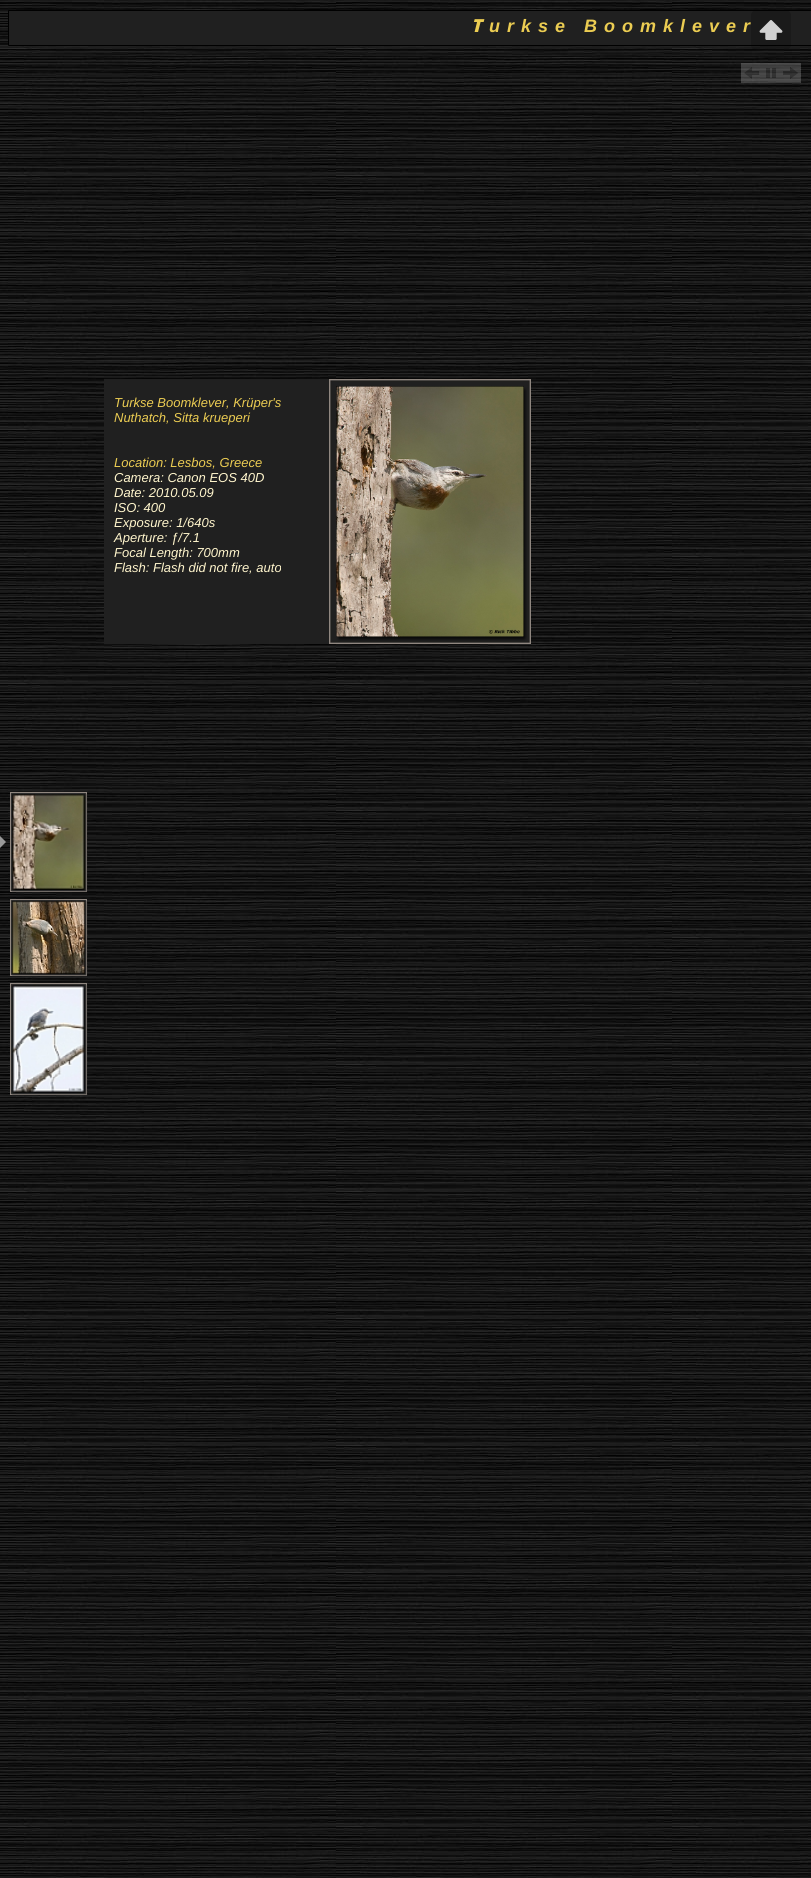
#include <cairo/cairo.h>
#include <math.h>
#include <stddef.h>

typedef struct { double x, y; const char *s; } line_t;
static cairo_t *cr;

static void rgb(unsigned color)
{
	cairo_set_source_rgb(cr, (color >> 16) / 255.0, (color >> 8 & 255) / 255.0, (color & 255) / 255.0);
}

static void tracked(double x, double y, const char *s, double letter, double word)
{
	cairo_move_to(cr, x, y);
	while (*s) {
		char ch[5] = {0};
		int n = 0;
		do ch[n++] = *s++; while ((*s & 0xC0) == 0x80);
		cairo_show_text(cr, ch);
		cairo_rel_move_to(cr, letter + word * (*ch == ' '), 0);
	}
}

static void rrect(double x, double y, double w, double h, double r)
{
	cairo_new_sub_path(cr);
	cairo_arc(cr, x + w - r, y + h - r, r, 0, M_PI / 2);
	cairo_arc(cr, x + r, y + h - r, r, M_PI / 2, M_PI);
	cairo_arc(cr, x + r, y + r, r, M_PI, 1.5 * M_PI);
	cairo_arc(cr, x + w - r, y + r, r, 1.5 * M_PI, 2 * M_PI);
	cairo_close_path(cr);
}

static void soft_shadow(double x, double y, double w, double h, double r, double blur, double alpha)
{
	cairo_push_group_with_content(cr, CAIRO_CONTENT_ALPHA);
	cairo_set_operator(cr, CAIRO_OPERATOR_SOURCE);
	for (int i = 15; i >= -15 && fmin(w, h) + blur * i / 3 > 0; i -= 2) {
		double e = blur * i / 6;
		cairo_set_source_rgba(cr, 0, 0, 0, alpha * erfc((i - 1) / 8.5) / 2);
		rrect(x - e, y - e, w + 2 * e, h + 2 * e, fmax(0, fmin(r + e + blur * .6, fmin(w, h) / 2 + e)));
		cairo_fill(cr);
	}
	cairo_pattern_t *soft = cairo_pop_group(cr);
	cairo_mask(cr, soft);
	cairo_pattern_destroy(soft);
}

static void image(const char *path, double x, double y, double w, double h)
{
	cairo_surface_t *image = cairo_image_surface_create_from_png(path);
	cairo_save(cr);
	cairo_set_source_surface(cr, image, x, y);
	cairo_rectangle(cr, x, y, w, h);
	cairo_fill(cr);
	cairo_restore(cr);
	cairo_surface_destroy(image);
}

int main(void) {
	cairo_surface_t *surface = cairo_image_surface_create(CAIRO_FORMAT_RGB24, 811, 1878);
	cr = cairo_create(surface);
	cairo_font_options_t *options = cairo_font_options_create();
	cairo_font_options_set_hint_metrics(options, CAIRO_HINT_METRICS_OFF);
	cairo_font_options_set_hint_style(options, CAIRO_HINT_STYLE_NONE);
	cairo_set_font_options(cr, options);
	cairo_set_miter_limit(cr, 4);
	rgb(0xffffff);
	cairo_paint(cr);
	image("img/1.png", 0, 0, 811, 1878);
	rgb(0x202020);
	rrect(8.5, 10.5, 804, 35, 0.5);
	cairo_fill_preserve(cr);
	rgb(0x000000);
	cairo_set_line_width(cr, 1);
	cairo_stroke(cr);
	image("img/2.png", 751, 11, 40, 38);
	image("img/3.png", 741, 63, 20, 20);
	image("img/4.png", 761, 63, 20, 20);
	image("img/5.png", 781, 63, 20, 20);
	rgb(0x999999);
	cairo_new_path(cr);
	cairo_move_to(cr, 0, 848);
	cairo_line_to(cr, 0, 836);
	cairo_line_to(cr, 6, 842);
	cairo_close_path(cr);
	cairo_fill(cr);
	rgb(0x908780);
	cairo_rectangle(cr, 10, 792, 77, 100);
	cairo_fill(cr);
	rgb(0x333333);
	soft_shadow(12, 794, 75, 98, 0, 0.5, 0.4);
	image("img/6.png", 11, 793, 75, 98);
	rgb(0x908780);
	cairo_rectangle(cr, 10, 899, 77, 77);
	cairo_fill(cr);
	rgb(0x333333);
	soft_shadow(12, 901, 75, 75, 0, 0.5, 0.4);
	image("img/7.png", 11, 900, 75, 75);
	rgb(0x908780);
	cairo_rectangle(cr, 10, 983, 77, 112);
	cairo_fill(cr);
	rgb(0x333333);
	soft_shadow(12, 985, 75, 110, 0, 0.5, 0.4);
	image("img/8.png", 11, 984, 75, 110);
	rgb(0x202020);
	cairo_rectangle(cr, 104, 379, 225, 265);
	cairo_fill(cr);
	cairo_rectangle(cr, 329.5, 379.5, 201, 264);
	rgb(0x908780);
	cairo_stroke(cr);
	image("img/9.png", 330, 380, 200, 263);
	cairo_select_font_face(cr, "Noto Sans Black", CAIRO_FONT_SLANT_ITALIC, CAIRO_FONT_WEIGHT_NORMAL);
	cairo_set_font_size(cr, 18);
	rgb(0xebcc52);
	tracked(471, 32, "T", 7, 0);
	cairo_select_font_face(cr, "Liberation Sans", CAIRO_FONT_SLANT_ITALIC, CAIRO_FONT_WEIGHT_BOLD);
	tracked(489, 32, "urkse Boomklever", 7, 0);
	cairo_select_font_face(cr, "Liberation Sans", CAIRO_FONT_SLANT_ITALIC, CAIRO_FONT_WEIGHT_NORMAL);
	cairo_set_font_size(cr, 13);
	{
		static const line_t items[] = {
			{114, 407, "Turkse Boomklever, Krüper's"},
			{114, 422, "Nuthatch, Sitta krueperi"},
			{114, 467, "Location: Lesbos, Greece"},
		};
		for (size_t i = 0; i < sizeof items / sizeof *items; i++) {
			cairo_move_to(cr, items[i].x, items[i].y);
			cairo_show_text(cr, items[i].s);
		}
	}
	rgb(0xfff5cc);
	{
		static const line_t items[] = {
			{114, 482, "Camera: Canon EOS 40D"},
			{114, 497, "Date: 2010.05.09"},
			{114, 512, "ISO: 400"},
			{114, 527, "Exposure: 1/640s"},
			{114, 542, "Aperture: ƒ/7.1"},
			{114, 557, "Focal Length: 700mm"},
			{114, 572, "Flash: Flash did not fire, auto"},
		};
		for (size_t i = 0; i < sizeof items / sizeof *items; i++) {
			cairo_move_to(cr, items[i].x, items[i].y);
			cairo_show_text(cr, items[i].s);
		}
	}
	cairo_surface_write_to_png(surface, "page.png");
	cairo_font_options_destroy(options);
	cairo_destroy(cr);
	cairo_surface_destroy(surface);
	return 0;
}
